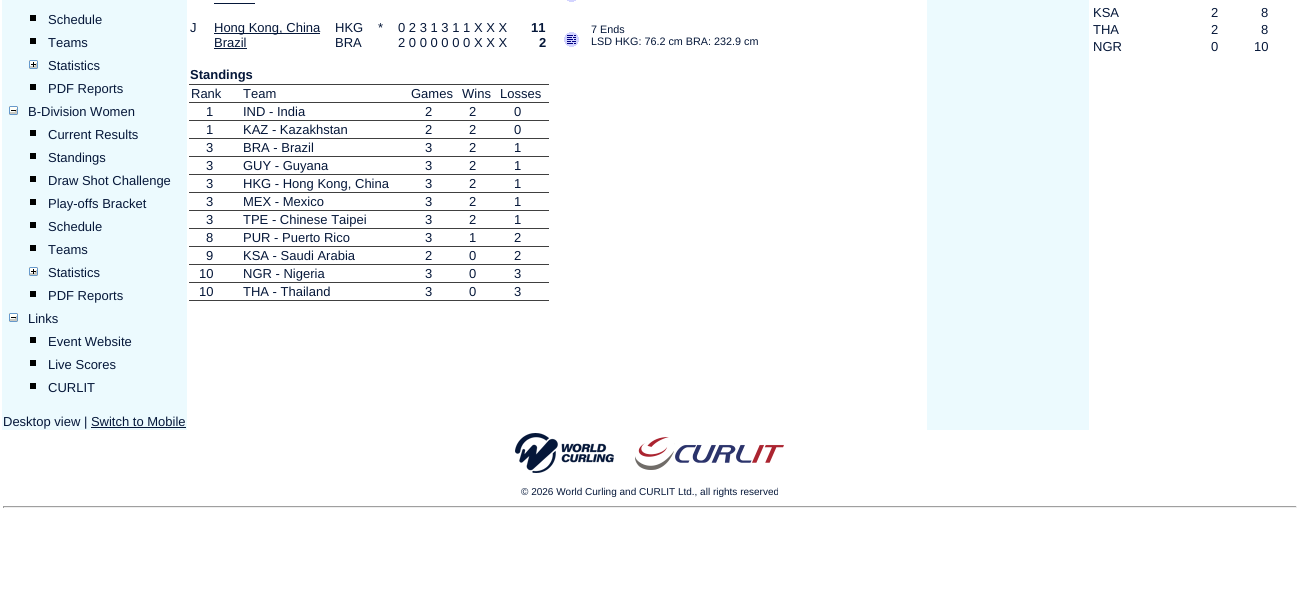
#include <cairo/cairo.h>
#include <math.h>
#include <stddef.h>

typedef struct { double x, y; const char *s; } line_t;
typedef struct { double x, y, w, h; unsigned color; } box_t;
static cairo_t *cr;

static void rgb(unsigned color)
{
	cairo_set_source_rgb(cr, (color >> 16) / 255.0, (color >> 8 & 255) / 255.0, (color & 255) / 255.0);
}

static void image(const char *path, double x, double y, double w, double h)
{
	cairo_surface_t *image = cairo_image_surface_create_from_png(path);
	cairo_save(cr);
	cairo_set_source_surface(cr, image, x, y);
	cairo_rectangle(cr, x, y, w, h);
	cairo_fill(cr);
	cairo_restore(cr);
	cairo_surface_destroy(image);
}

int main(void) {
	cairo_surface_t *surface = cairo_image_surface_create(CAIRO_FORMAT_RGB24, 1300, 599);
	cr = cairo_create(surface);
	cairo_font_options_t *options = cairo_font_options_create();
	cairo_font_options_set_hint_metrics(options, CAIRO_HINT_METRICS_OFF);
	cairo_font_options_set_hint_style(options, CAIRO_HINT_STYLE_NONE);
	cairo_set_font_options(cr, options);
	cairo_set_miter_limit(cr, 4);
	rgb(0xffffff);
	cairo_paint(cr);
	{
		static const box_t items[] = {
			{2, 0, 185, 430, 0xecfafe},
			{30, 15, 6, 6, 0x000000},
			{30, 38, 6, 6, 0x000000},
		};
		for (size_t i = 0; i < sizeof items / sizeof *items; i++) {
			rgb(items[i].color);
			cairo_rectangle(cr, items[i].x, items[i].y, items[i].w, items[i].h);
			cairo_fill(cr);
		}
	}
	image("img/1.png", 29, 60, 9, 9);
	cairo_rectangle(cr, 30, 84, 6, 6);
	cairo_fill(cr);
	image("img/2.png", 9, 106, 9, 9);
	{
		static const box_t items[] = {
			{30, 130, 6, 6, 0x000000},
			{30, 153, 6, 6, 0x000000},
			{30, 176, 6, 6, 0x000000},
			{30, 199, 6, 6, 0x000000},
			{30, 222, 6, 6, 0x000000},
			{30, 245, 6, 6, 0x000000},
		};
		for (size_t i = 0; i < sizeof items / sizeof *items; i++) {
			rgb(items[i].color);
			cairo_rectangle(cr, items[i].x, items[i].y, items[i].w, items[i].h);
			cairo_fill(cr);
		}
	}
	image("img/1.png", 29, 267, 9, 9);
	cairo_rectangle(cr, 30, 291, 6, 6);
	cairo_fill(cr);
	image("img/2.png", 9, 313, 9, 9);
	{
		static const box_t items[] = {
			{30, 337, 6, 6, 0x000000},
			{30, 360, 6, 6, 0x000000},
			{30, 383, 6, 6, 0x000000},
			{91, 427, 95, 1, 0x051739},
		};
		for (size_t i = 0; i < sizeof items / sizeof *items; i++) {
			rgb(items[i].color);
			cairo_rectangle(cr, items[i].x, items[i].y, items[i].w, items[i].h);
			cairo_fill(cr);
		}
	}
	image("img/3.png", 567, 0, 9, 2);
	cairo_rectangle(cr, 214, 3, 41, 1);
	cairo_fill(cr);
	cairo_rectangle(cr, 214, 33, 106, 1);
	cairo_fill(cr);
	image("img/4.png", 564, 32, 15, 15);
	{
		static const box_t items[] = {
			{214, 48, 33, 1, 0x051739},
			{189, 84, 360, 1, 0x404040},
			{189, 102, 360, 1, 0x404040},
			{189, 120, 360, 1, 0x404040},
			{189, 138, 360, 1, 0x404040},
			{189, 156, 360, 1, 0x404040},
			{189, 174, 360, 1, 0x404040},
			{189, 192, 360, 1, 0x404040},
			{189, 210, 360, 1, 0x404040},
			{189, 228, 360, 1, 0x404040},
			{189, 246, 360, 1, 0x404040},
			{189, 264, 360, 1, 0x404040},
			{189, 282, 360, 1, 0x404040},
			{189, 300, 360, 1, 0x404040},
			{927, 0, 162, 430, 0xecfafe},
		};
		for (size_t i = 0; i < sizeof items / sizeof *items; i++) {
			rgb(items[i].color);
			cairo_rectangle(cr, items[i].x, items[i].y, items[i].w, items[i].h);
			cairo_fill(cr);
		}
	}
	image("img/5.png", 515, 433, 269, 40);
	{
		static const box_t items[] = {
			{3, 506, 1294, 1, 0x9f9f9f},
			{1296, 506, 1, 2, 0xeeeeee},
			{3, 507, 1294, 1, 0xeeeeee},
			{3, 506, 1, 2, 0x9f9f9f},
		};
		for (size_t i = 0; i < sizeof items / sizeof *items; i++) {
			rgb(items[i].color);
			cairo_rectangle(cr, items[i].x, items[i].y, items[i].w, items[i].h);
			cairo_fill(cr);
		}
	}
	cairo_select_font_face(cr, "Liberation Sans", CAIRO_FONT_SLANT_NORMAL, CAIRO_FONT_WEIGHT_NORMAL);
	cairo_set_font_size(cr, 13);
	rgb(0x051739);
	{
		static const line_t items[] = {
			{48, 24, "Schedule"},
			{48, 47, "Teams"},
			{48, 70, "Statistics"},
			{48, 93, "PDF Reports"},
			{28, 116, "B-Division Women"},
			{48, 139, "Current Results"},
			{48, 162, "Standings"},
			{48, 185, "Draw Shot Challenge"},
			{48, 208, "Play-offs Bracket"},
			{48, 231, "Schedule"},
			{48, 254, "Teams"},
			{48, 277, "Statistics"},
			{48, 300, "PDF Reports"},
			{28, 323, "Links"},
			{48, 346, "Event Website"},
			{48, 369, "Live Scores"},
			{48, 392, "CURLIT"},
			{3, 426, "Desktop view | Switch to Mobile"},
			{190, 32, "J"},
			{214, 32, "Hong Kong, China"},
			{335, 32, "HKG"},
			{378, 32, "*"},
			{398, 32, "0 2 3 1 3 1 1 X X X"},
		};
		for (size_t i = 0; i < sizeof items / sizeof *items; i++) {
			cairo_move_to(cr, items[i].x, items[i].y);
			cairo_show_text(cr, items[i].s);
		}
	}
	cairo_select_font_face(cr, "Liberation Sans", CAIRO_FONT_SLANT_NORMAL, CAIRO_FONT_WEIGHT_BOLD);
	cairo_move_to(cr, 531, 32);
	cairo_show_text(cr, "11");
	cairo_select_font_face(cr, "Liberation Sans", CAIRO_FONT_SLANT_NORMAL, CAIRO_FONT_WEIGHT_NORMAL);
	cairo_set_font_size(cr, 10.8);
	cairo_move_to(cr, 591, 33);
	cairo_show_text(cr, "7 Ends");
	cairo_set_font_size(cr, 13);
	{
		static const line_t items[] = {
			{214, 47, "Brazil"},
			{335, 47, "BRA"},
			{398, 47, "2 0 0 0 0 0 0 X X X"},
		};
		for (size_t i = 0; i < sizeof items / sizeof *items; i++) {
			cairo_move_to(cr, items[i].x, items[i].y);
			cairo_show_text(cr, items[i].s);
		}
	}
	cairo_select_font_face(cr, "Liberation Sans", CAIRO_FONT_SLANT_NORMAL, CAIRO_FONT_WEIGHT_BOLD);
	cairo_move_to(cr, 539, 47);
	cairo_show_text(cr, "2");
	cairo_select_font_face(cr, "Liberation Sans", CAIRO_FONT_SLANT_NORMAL, CAIRO_FONT_WEIGHT_NORMAL);
	cairo_set_font_size(cr, 10.8);
	cairo_move_to(cr, 591, 45);
	cairo_show_text(cr, "LSD HKG: 76.2 cm BRA: 232.9 cm");
	cairo_select_font_face(cr, "Liberation Sans", CAIRO_FONT_SLANT_NORMAL, CAIRO_FONT_WEIGHT_BOLD);
	cairo_set_font_size(cr, 13);
	cairo_move_to(cr, 190, 79);
	cairo_show_text(cr, "Standings");
	cairo_select_font_face(cr, "Liberation Sans", CAIRO_FONT_SLANT_NORMAL, CAIRO_FONT_WEIGHT_NORMAL);
	{
		static const line_t items[] = {
			{191, 98, "Rank"},
			{243, 98, "Team"},
			{411, 98, "Games"},
			{462, 98, "Wins"},
			{500, 98, "Losses"},
			{206, 116, "1"},
			{243, 116, "IND - India"},
			{425, 116, "2"},
			{469, 116, "2"},
			{514, 116, "0"},
			{206, 134, "1"},
			{243, 134, "KAZ - Kazakhstan"},
			{425, 134, "2"},
			{469, 134, "2"},
			{514, 134, "0"},
			{206, 152, "3"},
			{243, 152, "BRA - Brazil"},
			{425, 152, "3"},
			{469, 152, "2"},
			{514, 152, "1"},
			{206, 170, "3"},
			{243, 170, "GUY - Guyana"},
			{425, 170, "3"},
			{469, 170, "2"},
			{514, 170, "1"},
			{206, 188, "3"},
			{243, 188, "HKG - Hong Kong, China"},
			{425, 188, "3"},
			{469, 188, "2"},
			{514, 188, "1"},
			{206, 206, "3"},
			{243, 206, "MEX - Mexico"},
			{425, 206, "3"},
			{469, 206, "2"},
			{514, 206, "1"},
			{206, 224, "3"},
			{243, 224, "TPE - Chinese Taipei"},
			{425, 224, "3"},
			{469, 224, "2"},
			{514, 224, "1"},
			{206, 242, "8"},
			{243, 242, "PUR - Puerto Rico"},
			{425, 242, "3"},
			{469, 242, "1"},
			{514, 242, "2"},
			{206, 260, "9"},
			{243, 260, "KSA - Saudi Arabia"},
			{425, 260, "2"},
			{469, 260, "0"},
			{514, 260, "2"},
			{199, 278, "10"},
			{243, 278, "NGR - Nigeria"},
			{425, 278, "3"},
			{469, 278, "0"},
			{514, 278, "3"},
			{199, 296, "10"},
			{243, 296, "THA - Thailand"},
			{425, 296, "3"},
			{469, 296, "0"},
			{514, 296, "3"},
			{1093, 17, "KSA"},
			{1211, 17, "2"},
			{1261, 17, "8"},
			{1093, 34, "THA"},
			{1211, 34, "2"},
			{1261, 34, "8"},
			{1093, 51, "NGR"},
			{1211, 51, "0"},
			{1254, 51, "10"},
		};
		for (size_t i = 0; i < sizeof items / sizeof *items; i++) {
			cairo_move_to(cr, items[i].x, items[i].y);
			cairo_show_text(cr, items[i].s);
		}
	}
	cairo_set_font_size(cr, 10);
	cairo_move_to(cr, 521, 495);
	cairo_show_text(cr, "© 2026 World Curling and CURLIT Ltd., all rights reserved");
	cairo_surface_write_to_png(surface, "page.png");
	cairo_font_options_destroy(options);
	cairo_destroy(cr);
	cairo_surface_destroy(surface);
	return 0;
}
